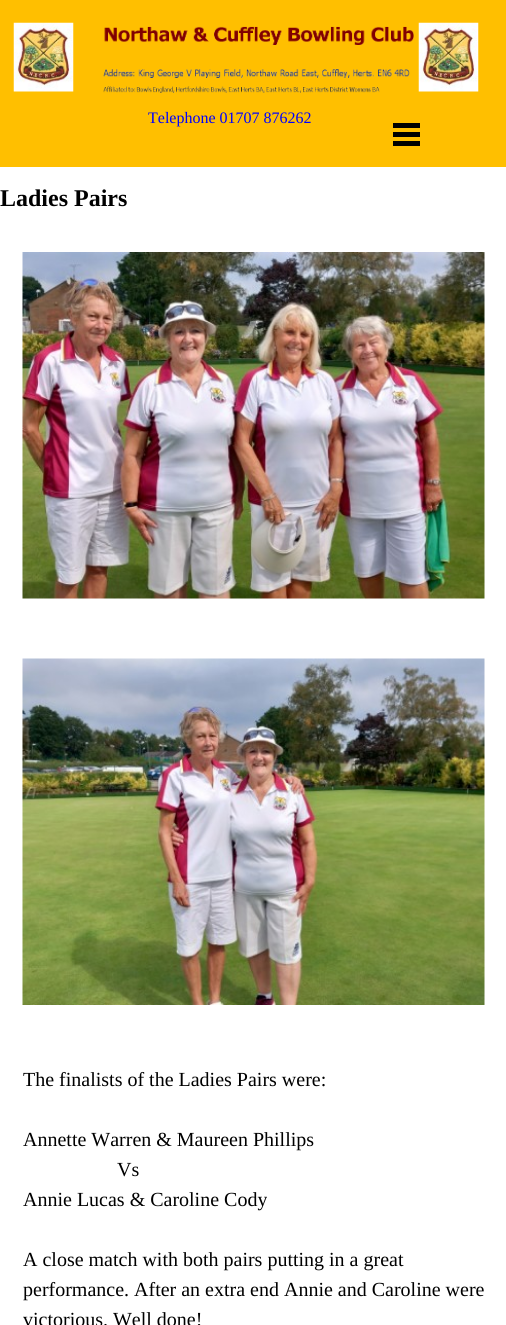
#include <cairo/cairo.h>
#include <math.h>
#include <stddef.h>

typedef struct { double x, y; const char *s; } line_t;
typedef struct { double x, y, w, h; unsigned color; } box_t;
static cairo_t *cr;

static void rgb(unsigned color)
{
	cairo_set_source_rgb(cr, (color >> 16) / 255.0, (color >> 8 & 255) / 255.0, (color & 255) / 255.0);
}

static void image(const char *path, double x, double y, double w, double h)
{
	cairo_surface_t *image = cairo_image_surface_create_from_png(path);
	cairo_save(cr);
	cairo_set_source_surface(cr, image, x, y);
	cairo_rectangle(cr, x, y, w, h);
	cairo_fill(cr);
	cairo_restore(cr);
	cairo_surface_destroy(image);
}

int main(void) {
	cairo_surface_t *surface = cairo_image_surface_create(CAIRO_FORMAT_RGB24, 506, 1325);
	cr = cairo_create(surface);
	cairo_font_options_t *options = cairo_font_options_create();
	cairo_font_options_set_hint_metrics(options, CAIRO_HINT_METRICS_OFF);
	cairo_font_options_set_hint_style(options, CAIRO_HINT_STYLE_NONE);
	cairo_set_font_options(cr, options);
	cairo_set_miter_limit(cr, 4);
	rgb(0xffbf00);
	cairo_paint(cr);
	image("img/1.png", 13, 22, 61, 70);
	image("img/2.png", 104, 26, 310, 19);
	image("img/3.png", 418, 22, 61, 70);
	image("img/4.png", 103, 68, 307, 10);
	image("img/5.png", 103, 86, 277, 7);
	{
		static const box_t items[] = {
			{393, 123, 27, 5, 0x000000},
			{393, 132, 27, 5, 0x000000},
			{393, 141, 27, 5, 0x000000},
			{0, 167, 506, 1158, 0xffffff},
		};
		for (size_t i = 0; i < sizeof items / sizeof *items; i++) {
			rgb(items[i].color);
			cairo_rectangle(cr, items[i].x, items[i].y, items[i].w, items[i].h);
			cairo_fill(cr);
		}
	}
	image("img/6.png", 22, 252, 463, 347);
	image("img/7.png", 22, 658, 463, 347);
	cairo_select_font_face(cr, "Liberation Serif", CAIRO_FONT_SLANT_NORMAL, CAIRO_FONT_WEIGHT_NORMAL);
	cairo_set_font_size(cr, 16);
	rgb(0x0000ff);
	cairo_move_to(cr, 148, 123);
	cairo_show_text(cr, "Telephone 01707 876262");
	cairo_select_font_face(cr, "Liberation Serif", CAIRO_FONT_SLANT_NORMAL, CAIRO_FONT_WEIGHT_BOLD);
	cairo_set_font_size(cr, 24);
	rgb(0x000000);
	cairo_move_to(cr, 0, 206);
	cairo_show_text(cr, "Ladies Pairs");
	cairo_select_font_face(cr, "Liberation Serif", CAIRO_FONT_SLANT_NORMAL, CAIRO_FONT_WEIGHT_NORMAL);
	cairo_set_font_size(cr, 20);
	{
		static const line_t items[] = {
			{23, 1086, "The finalists of the Ladies Pairs were:"},
			{23, 1146, "Annette Warren & Maureen Phillips"},
			{117, 1176, "Vs"},
			{23, 1206, "Annie Lucas & Caroline Cody"},
			{23, 1266, "A close match with both pairs putting in a great"},
			{23, 1296, "performance. After an extra end Annie and Caroline were"},
			{23, 1326, "victorious. Well done!"},
		};
		for (size_t i = 0; i < sizeof items / sizeof *items; i++) {
			cairo_move_to(cr, items[i].x, items[i].y);
			cairo_show_text(cr, items[i].s);
		}
	}
	cairo_surface_write_to_png(surface, "page.png");
	cairo_font_options_destroy(options);
	cairo_destroy(cr);
	cairo_surface_destroy(surface);
	return 0;
}
